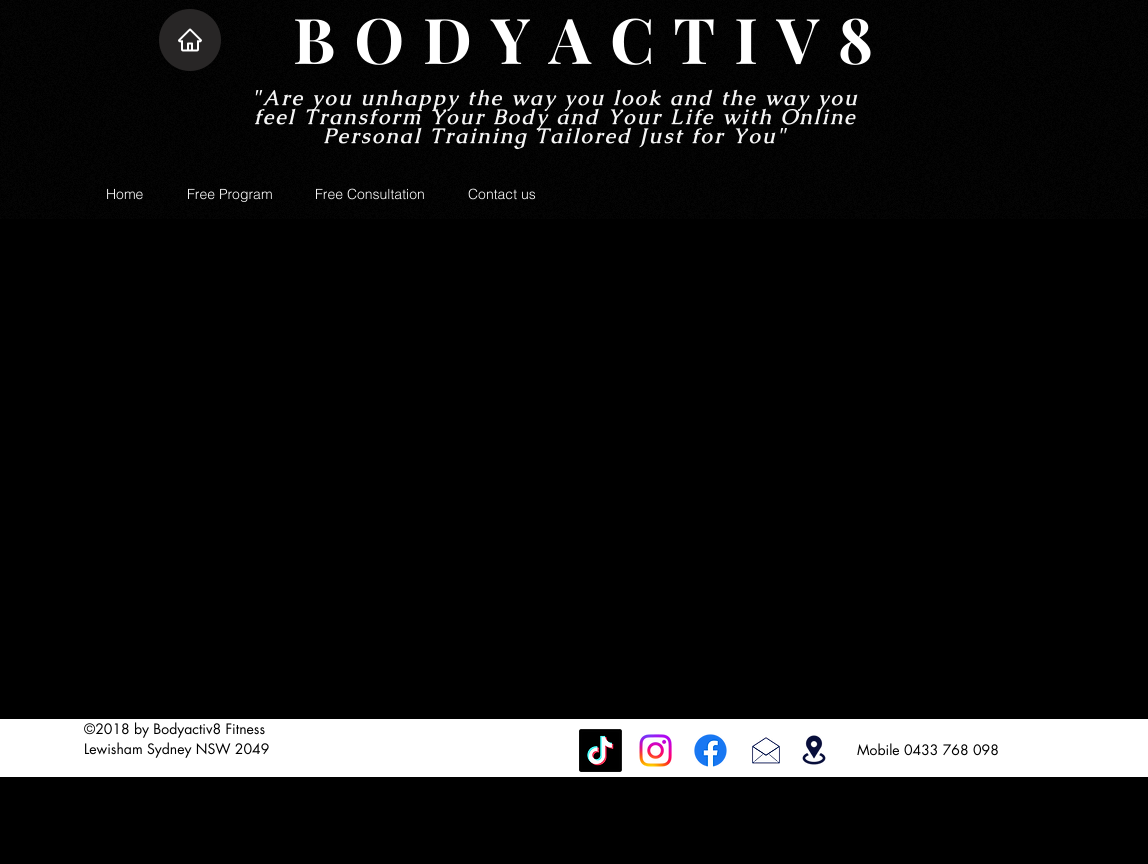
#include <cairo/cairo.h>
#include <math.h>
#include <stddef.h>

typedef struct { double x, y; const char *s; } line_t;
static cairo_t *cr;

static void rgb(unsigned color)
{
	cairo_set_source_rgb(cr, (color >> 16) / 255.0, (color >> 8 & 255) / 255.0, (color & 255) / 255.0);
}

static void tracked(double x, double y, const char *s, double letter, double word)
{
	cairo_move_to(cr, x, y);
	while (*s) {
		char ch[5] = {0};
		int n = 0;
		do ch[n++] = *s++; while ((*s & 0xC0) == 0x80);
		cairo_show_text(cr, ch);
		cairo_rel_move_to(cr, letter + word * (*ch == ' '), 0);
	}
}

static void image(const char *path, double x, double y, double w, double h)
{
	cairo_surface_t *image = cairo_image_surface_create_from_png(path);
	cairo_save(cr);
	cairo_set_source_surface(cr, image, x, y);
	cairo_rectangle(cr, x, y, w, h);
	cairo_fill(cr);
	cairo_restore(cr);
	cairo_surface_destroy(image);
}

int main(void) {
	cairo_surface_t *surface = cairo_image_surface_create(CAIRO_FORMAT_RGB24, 1148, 864);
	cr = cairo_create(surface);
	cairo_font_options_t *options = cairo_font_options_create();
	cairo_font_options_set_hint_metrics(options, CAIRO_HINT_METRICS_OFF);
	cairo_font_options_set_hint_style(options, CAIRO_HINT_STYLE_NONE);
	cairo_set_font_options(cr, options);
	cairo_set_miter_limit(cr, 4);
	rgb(0x000000);
	cairo_paint(cr);
	image("img/1.png", 0, 0, 1148, 219);
	rgb(0x282626);
	cairo_arc(cr, 190, 40, 31, 0, 2 * M_PI);
	cairo_fill(cr);
	image("img/2.png", 178, 28, 24, 24);
	rgb(0xffffff);
	cairo_rectangle(cr, 0, 719, 1148, 58);
	cairo_fill(cr);
	image("img/3.png", 579, 729, 43, 43);
	image("img/4.png", 639, 734, 33, 33);
	image("img/5.png", 694, 734, 33, 33);
	image("img/6.png", 752, 737, 28, 27);
	image("img/7.png", 802, 735, 24, 30);
	cairo_select_font_face(cr, "Playfair Display", CAIRO_FONT_SLANT_NORMAL, CAIRO_FONT_WEIGHT_BOLD);
	cairo_set_font_size(cr, 63);
	tracked(293, 64, "BODYACTIV8", 18.9, 0);
	cairo_select_font_face(cr, "Caudex", CAIRO_FONT_SLANT_ITALIC, CAIRO_FONT_WEIGHT_BOLD);
	cairo_set_font_size(cr, 21);
	rgb(0xf5f5f5);
	{
		static const line_t items[] = {
			{252, 105, "\"Are you unhappy the way you look and the way you"},
			{254, 124, "feel Transform Your Body and Your Life with Online"},
			{323, 143, "Personal Training Tailored Just for You\""},
		};
		for (size_t i = 0; i < sizeof items / sizeof *items; i++) {
			tracked(items[i].x, items[i].y, items[i].s, 2.1, 0);
		}
	}
	cairo_select_font_face(cr, "helvetica Light", CAIRO_FONT_SLANT_NORMAL, CAIRO_FONT_WEIGHT_NORMAL);
	cairo_set_font_size(cr, 14);
	rgb(0xffffff);
	{
		static const line_t items[] = {
			{106, 199, "Home"},
			{187, 199, "Free Program"},
			{315, 199, "Free Consultation"},
			{468, 199, "Contact us"},
		};
		for (size_t i = 0; i < sizeof items / sizeof *items; i++) {
			cairo_move_to(cr, items[i].x, items[i].y);
			cairo_show_text(cr, items[i].s);
		}
	}
	cairo_select_font_face(cr, "futura", CAIRO_FONT_SLANT_NORMAL, CAIRO_FONT_WEIGHT_NORMAL);
	rgb(0x000000);
	{
		static const line_t items[] = {
			{84, 734, "©2018 by Bodyactiv8 Fitness"},
			{84, 754, "Lewisham Sydney NSW 2049"},
			{857, 755, "Mobile 0433 768 098"},
		};
		for (size_t i = 0; i < sizeof items / sizeof *items; i++) {
			cairo_move_to(cr, items[i].x, items[i].y);
			cairo_show_text(cr, items[i].s);
		}
	}
	cairo_surface_write_to_png(surface, "page.png");
	cairo_font_options_destroy(options);
	cairo_destroy(cr);
	cairo_surface_destroy(surface);
	return 0;
}
